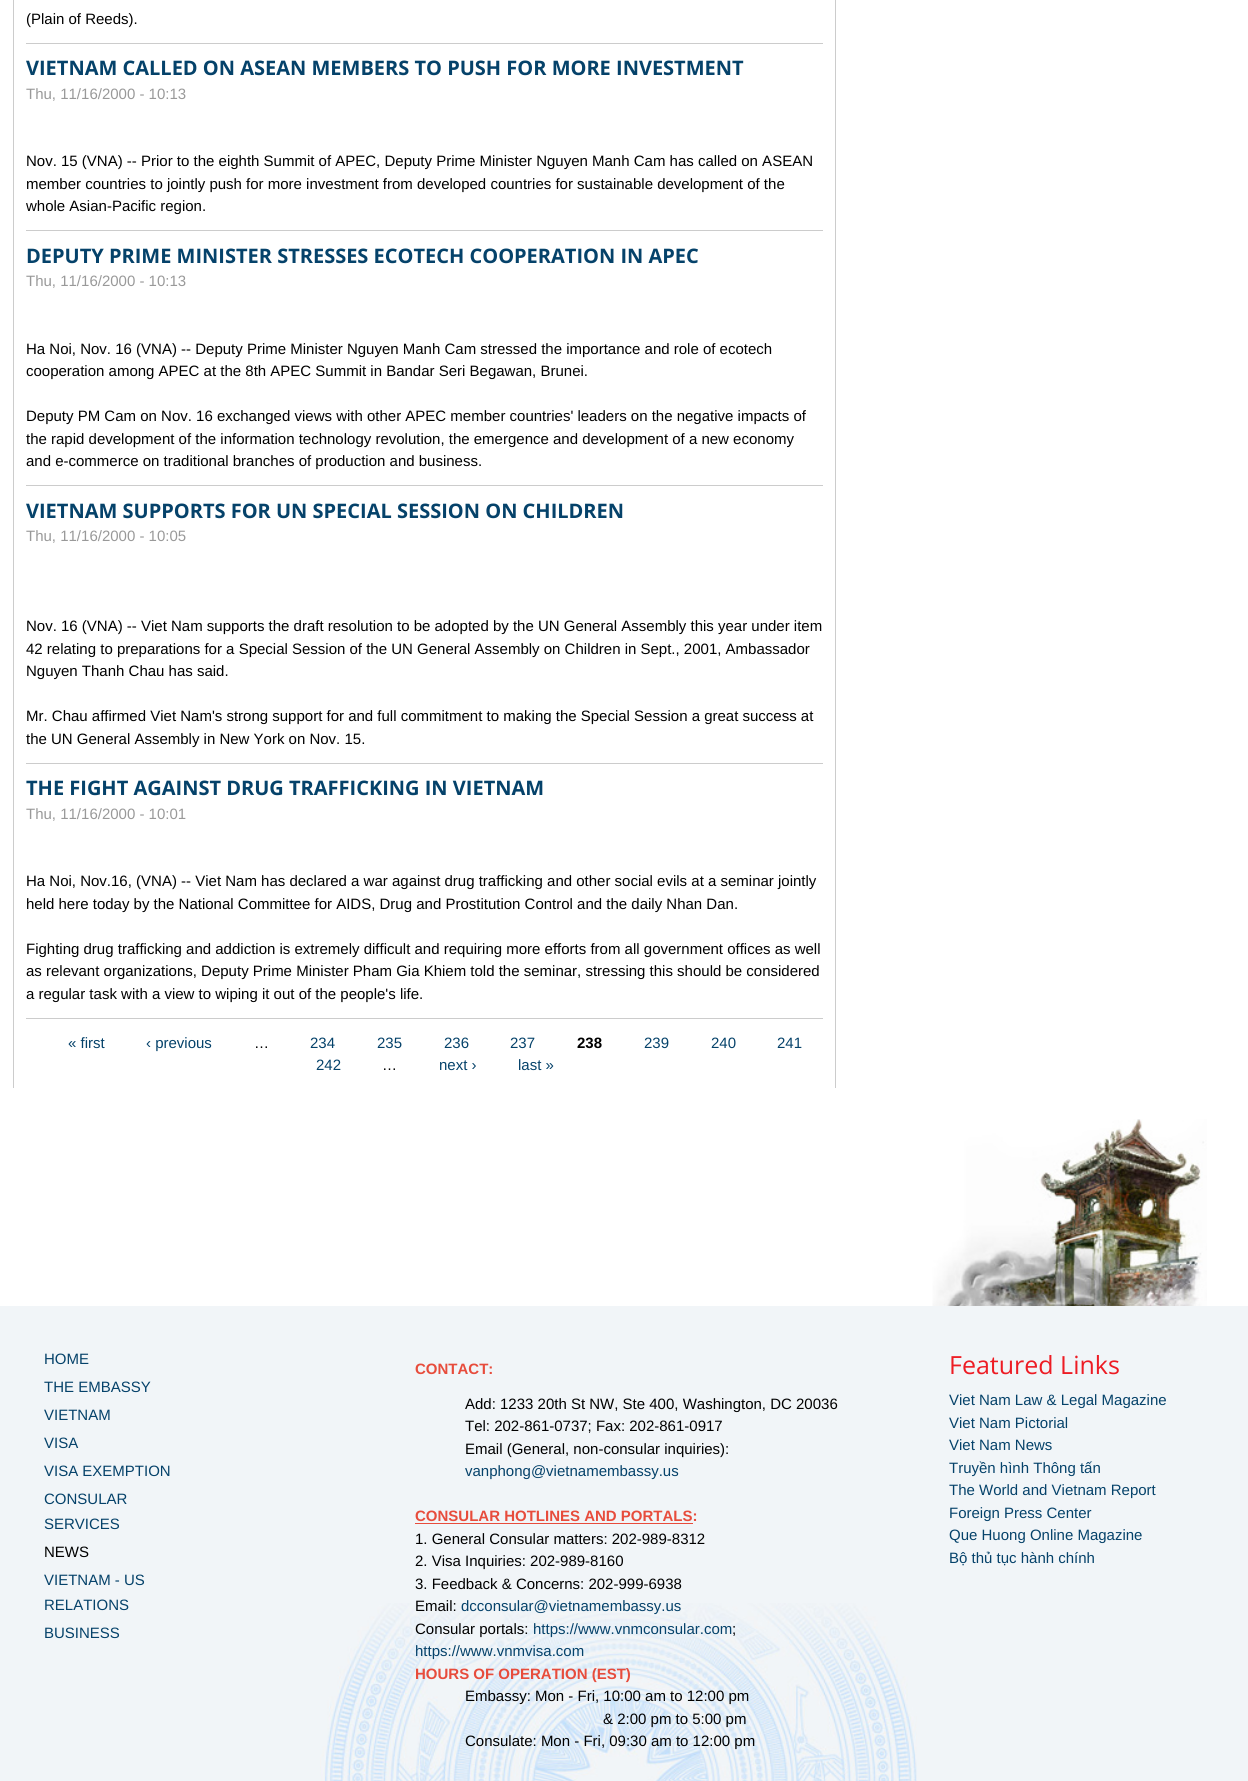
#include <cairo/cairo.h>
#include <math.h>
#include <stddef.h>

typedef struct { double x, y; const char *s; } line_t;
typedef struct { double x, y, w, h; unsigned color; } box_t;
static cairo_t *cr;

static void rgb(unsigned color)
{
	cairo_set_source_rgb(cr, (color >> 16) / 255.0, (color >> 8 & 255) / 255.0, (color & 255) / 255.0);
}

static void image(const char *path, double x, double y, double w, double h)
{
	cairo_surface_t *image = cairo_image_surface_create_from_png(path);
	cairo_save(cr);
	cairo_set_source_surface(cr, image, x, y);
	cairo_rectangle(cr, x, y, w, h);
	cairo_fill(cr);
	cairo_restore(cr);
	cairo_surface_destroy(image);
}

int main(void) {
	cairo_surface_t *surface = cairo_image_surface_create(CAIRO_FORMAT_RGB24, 1248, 1781);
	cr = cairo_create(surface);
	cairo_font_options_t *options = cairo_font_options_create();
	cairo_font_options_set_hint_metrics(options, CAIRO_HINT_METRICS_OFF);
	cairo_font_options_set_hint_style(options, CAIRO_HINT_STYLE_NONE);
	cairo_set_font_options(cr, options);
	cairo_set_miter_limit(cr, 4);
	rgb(0xffffff);
	cairo_paint(cr);
	{
		static const box_t items[] = {
			{835, 0, 1, 1088, 0xcccccc},
			{13, 0, 1, 1088, 0xcccccc},
			{26, 43, 797, 1, 0xcccccc},
			{26, 230, 797, 1, 0xcccccc},
			{26, 485, 797, 1, 0xcccccc},
			{26, 763, 797, 1, 0xcccccc},
			{26, 1018, 797, 1, 0xcccccc},
		};
		for (size_t i = 0; i < sizeof items / sizeof *items; i++) {
			rgb(items[i].color);
			cairo_rectangle(cr, items[i].x, items[i].y, items[i].w, items[i].h);
			cairo_fill(cr);
		}
	}
	image("img/1.png", 932, 1119, 275, 187);
	rgb(0xf1f5f8);
	cairo_rectangle(cr, 0, 1306, 1248, 475);
	cairo_fill(cr);
	image("img/2.png", 320, 1603, 597, 178);
	rgb(0xe74c3c);
	cairo_rectangle(cr, 415, 1523, 278, 1);
	cairo_fill(cr);
	cairo_select_font_face(cr, "Liberation Sans", CAIRO_FONT_SLANT_NORMAL, CAIRO_FONT_WEIGHT_NORMAL);
	cairo_set_font_size(cr, 15);
	rgb(0x000000);
	cairo_move_to(cr, 26, 24);
	cairo_show_text(cr, "(Plain of Reeds).");
	cairo_select_font_face(cr, "Open Sans", CAIRO_FONT_SLANT_NORMAL, CAIRO_FONT_WEIGHT_BOLD);
	cairo_set_font_size(cr, 20);
	rgb(0x05426a);
	cairo_move_to(cr, 26, 75);
	cairo_show_text(cr, "VIETNAM CALLED ON ASEAN MEMBERS TO PUSH FOR MORE INVESTMENT");
	cairo_select_font_face(cr, "Liberation Sans", CAIRO_FONT_SLANT_NORMAL, CAIRO_FONT_WEIGHT_NORMAL);
	cairo_set_font_size(cr, 15);
	rgb(0x999999);
	cairo_move_to(cr, 26, 99);
	cairo_show_text(cr, "Thu, 11/16/2000 - 10:13");
	rgb(0x000000);
	{
		static const line_t items[] = {
			{26, 166, "Nov. 15 (VNA) -- Prior to the eighth Summit of APEC, Deputy Prime Minister Nguyen Manh Cam has called on ASEAN"},
			{26, 189, "member countries to jointly push for more investment from developed countries for sustainable development of the"},
			{26, 211, "whole Asian-Pacific region."},
		};
		for (size_t i = 0; i < sizeof items / sizeof *items; i++) {
			cairo_move_to(cr, items[i].x, items[i].y);
			cairo_show_text(cr, items[i].s);
		}
	}
	cairo_select_font_face(cr, "Open Sans", CAIRO_FONT_SLANT_NORMAL, CAIRO_FONT_WEIGHT_BOLD);
	cairo_set_font_size(cr, 20);
	rgb(0x05426a);
	cairo_move_to(cr, 26, 263);
	cairo_show_text(cr, "DEPUTY PRIME MINISTER STRESSES ECOTECH COOPERATION IN APEC");
	cairo_select_font_face(cr, "Liberation Sans", CAIRO_FONT_SLANT_NORMAL, CAIRO_FONT_WEIGHT_NORMAL);
	cairo_set_font_size(cr, 15);
	rgb(0x999999);
	cairo_move_to(cr, 26, 286);
	cairo_show_text(cr, "Thu, 11/16/2000 - 10:13");
	rgb(0x000000);
	{
		static const line_t items[] = {
			{26, 354, "Ha Noi, Nov. 16 (VNA) -- Deputy Prime Minister Nguyen Manh Cam stressed the importance and role of ecotech"},
			{26, 376, "cooperation among APEC at the 8th APEC Summit in Bandar Seri Begawan, Brunei."},
			{26, 421, "Deputy PM Cam on Nov. 16 exchanged views with other APEC member countries' leaders on the negative impacts of"},
			{26, 444, "the rapid development of the information technology revolution, the emergence and development of a new economy"},
			{26, 466, "and e-commerce on traditional branches of production and business."},
		};
		for (size_t i = 0; i < sizeof items / sizeof *items; i++) {
			cairo_move_to(cr, items[i].x, items[i].y);
			cairo_show_text(cr, items[i].s);
		}
	}
	cairo_select_font_face(cr, "Open Sans", CAIRO_FONT_SLANT_NORMAL, CAIRO_FONT_WEIGHT_BOLD);
	cairo_set_font_size(cr, 20);
	rgb(0x05426a);
	cairo_move_to(cr, 26, 518);
	cairo_show_text(cr, "VIETNAM SUPPORTS FOR UN SPECIAL SESSION ON CHILDREN");
	cairo_select_font_face(cr, "Liberation Sans", CAIRO_FONT_SLANT_NORMAL, CAIRO_FONT_WEIGHT_NORMAL);
	cairo_set_font_size(cr, 15);
	rgb(0x999999);
	cairo_move_to(cr, 26, 541);
	cairo_show_text(cr, "Thu, 11/16/2000 - 10:05");
	rgb(0x000000);
	{
		static const line_t items[] = {
			{26, 631, "Nov. 16 (VNA) -- Viet Nam supports the draft resolution to be adopted by the UN General Assembly this year under item"},
			{26, 654, "42 relating to preparations for a Special Session of the UN General Assembly on Children in Sept., 2001, Ambassador"},
			{26, 676, "Nguyen Thanh Chau has said."},
			{26, 721, "Mr. Chau affirmed Viet Nam's strong support for and full commitment to making the Special Session a great success at"},
			{26, 744, "the UN General Assembly in New York on Nov. 15."},
		};
		for (size_t i = 0; i < sizeof items / sizeof *items; i++) {
			cairo_move_to(cr, items[i].x, items[i].y);
			cairo_show_text(cr, items[i].s);
		}
	}
	cairo_select_font_face(cr, "Open Sans", CAIRO_FONT_SLANT_NORMAL, CAIRO_FONT_WEIGHT_BOLD);
	cairo_set_font_size(cr, 20);
	rgb(0x05426a);
	cairo_move_to(cr, 26, 795);
	cairo_show_text(cr, "THE FIGHT AGAINST DRUG TRAFFICKING IN VIETNAM");
	cairo_select_font_face(cr, "Liberation Sans", CAIRO_FONT_SLANT_NORMAL, CAIRO_FONT_WEIGHT_NORMAL);
	cairo_set_font_size(cr, 15);
	rgb(0x999999);
	cairo_move_to(cr, 26, 819);
	cairo_show_text(cr, "Thu, 11/16/2000 - 10:01");
	rgb(0x000000);
	{
		static const line_t items[] = {
			{26, 886, "Ha Noi, Nov.16, (VNA) -- Viet Nam has declared a war against drug trafficking and other social evils at a seminar jointly"},
			{26, 909, "held here today by the National Committee for AIDS, Drug and Prostitution Control and the daily Nhan Dan."},
			{26, 954, "Fighting drug trafficking and addiction is extremely difficult and requiring more efforts from all government offices as well"},
			{26, 976, "as relevant organizations, Deputy Prime Minister Pham Gia Khiem told the seminar, stressing this should be considered"},
			{26, 999, "a regular task with a view to wiping it out of the people's life."},
		};
		for (size_t i = 0; i < sizeof items / sizeof *items; i++) {
			cairo_move_to(cr, items[i].x, items[i].y);
			cairo_show_text(cr, items[i].s);
		}
	}
	rgb(0x05426a);
	cairo_move_to(cr, 68, 1048);
	cairo_show_text(cr, "« first");
	cairo_move_to(cr, 146, 1048);
	cairo_show_text(cr, "‹ previous");
	rgb(0x000000);
	cairo_move_to(cr, 254, 1048);
	cairo_show_text(cr, "…");
	rgb(0x05426a);
	{
		static const line_t items[] = {
			{310, 1048, "234"},
			{377, 1048, "235"},
			{444, 1048, "236"},
			{510, 1048, "237"},
		};
		for (size_t i = 0; i < sizeof items / sizeof *items; i++) {
			cairo_move_to(cr, items[i].x, items[i].y);
			cairo_show_text(cr, items[i].s);
		}
	}
	cairo_select_font_face(cr, "Liberation Sans", CAIRO_FONT_SLANT_NORMAL, CAIRO_FONT_WEIGHT_BOLD);
	rgb(0x000000);
	cairo_move_to(cr, 577, 1048);
	cairo_show_text(cr, "238");
	cairo_select_font_face(cr, "Liberation Sans", CAIRO_FONT_SLANT_NORMAL, CAIRO_FONT_WEIGHT_NORMAL);
	rgb(0x05426a);
	{
		static const line_t items[] = {
			{644, 1048, "239"},
			{711, 1048, "240"},
			{777, 1048, "241"},
			{316, 1070, "242"},
		};
		for (size_t i = 0; i < sizeof items / sizeof *items; i++) {
			cairo_move_to(cr, items[i].x, items[i].y);
			cairo_show_text(cr, items[i].s);
		}
	}
	rgb(0x000000);
	cairo_move_to(cr, 382, 1070);
	cairo_show_text(cr, "…");
	rgb(0x05426a);
	{
		static const line_t items[] = {
			{439, 1070, "next ›"},
			{518, 1070, "last »"},
			{44, 1364, "HOME"},
			{44, 1392, "THE EMBASSY"},
			{44, 1420, "VIETNAM"},
			{44, 1448, "VISA"},
			{44, 1476, "VISA EXEMPTION"},
			{44, 1504, "CONSULAR"},
			{44, 1529, "SERVICES"},
		};
		for (size_t i = 0; i < sizeof items / sizeof *items; i++) {
			cairo_move_to(cr, items[i].x, items[i].y);
			cairo_show_text(cr, items[i].s);
		}
	}
	rgb(0x000000);
	cairo_move_to(cr, 44, 1557);
	cairo_show_text(cr, "NEWS");
	rgb(0x05426a);
	{
		static const line_t items[] = {
			{44, 1585, "VIETNAM - US"},
			{44, 1610, "RELATIONS"},
			{44, 1638, "BUSINESS"},
		};
		for (size_t i = 0; i < sizeof items / sizeof *items; i++) {
			cairo_move_to(cr, items[i].x, items[i].y);
			cairo_show_text(cr, items[i].s);
		}
	}
	cairo_select_font_face(cr, "Liberation Sans", CAIRO_FONT_SLANT_NORMAL, CAIRO_FONT_WEIGHT_BOLD);
	rgb(0xe74c3c);
	cairo_move_to(cr, 415, 1374);
	cairo_show_text(cr, "CONTACT:");
	cairo_select_font_face(cr, "Liberation Sans", CAIRO_FONT_SLANT_NORMAL, CAIRO_FONT_WEIGHT_NORMAL);
	rgb(0x000000);
	{
		static const line_t items[] = {
			{465, 1409, "Add: 1233 20th St NW, Ste 400, Washington, DC 20036"},
			{465, 1431, "Tel: 202-861-0737; Fax: 202-861-0917"},
			{465, 1454, "Email (General, non-consular inquiries):"},
		};
		for (size_t i = 0; i < sizeof items / sizeof *items; i++) {
			cairo_move_to(cr, items[i].x, items[i].y);
			cairo_show_text(cr, items[i].s);
		}
	}
	rgb(0x05426a);
	cairo_move_to(cr, 465, 1476);
	cairo_show_text(cr, "vanphong@vietnamembassy.us");
	cairo_select_font_face(cr, "Liberation Sans", CAIRO_FONT_SLANT_NORMAL, CAIRO_FONT_WEIGHT_BOLD);
	rgb(0xe74c3c);
	cairo_move_to(cr, 415, 1521);
	cairo_show_text(cr, "CONSULAR HOTLINES AND PORTALS:");
	cairo_select_font_face(cr, "Liberation Sans", CAIRO_FONT_SLANT_NORMAL, CAIRO_FONT_WEIGHT_NORMAL);
	rgb(0x000000);
	{
		static const line_t items[] = {
			{415, 1544, "1. General Consular matters: 202-989-8312"},
			{415, 1566, "2. Visa Inquiries: 202-989-8160"},
			{415, 1589, "3. Feedback & Concerns: 202-999-6938"},
			{415, 1611, "Email:"},
		};
		for (size_t i = 0; i < sizeof items / sizeof *items; i++) {
			cairo_move_to(cr, items[i].x, items[i].y);
			cairo_show_text(cr, items[i].s);
		}
	}
	rgb(0x05426a);
	cairo_move_to(cr, 461, 1611);
	cairo_show_text(cr, "dcconsular@vietnamembassy.us");
	rgb(0x000000);
	cairo_move_to(cr, 415, 1634);
	cairo_show_text(cr, "Consular portals:");
	rgb(0x05426a);
	cairo_move_to(cr, 533, 1634);
	cairo_show_text(cr, "https://www.vnmconsular.com");
	rgb(0x000000);
	cairo_move_to(cr, 732, 1634);
	cairo_show_text(cr, ";");
	rgb(0x05426a);
	cairo_move_to(cr, 415, 1656);
	cairo_show_text(cr, "https://www.vnmvisa.com");
	cairo_select_font_face(cr, "Liberation Sans", CAIRO_FONT_SLANT_NORMAL, CAIRO_FONT_WEIGHT_BOLD);
	rgb(0xe74c3c);
	cairo_move_to(cr, 415, 1679);
	cairo_show_text(cr, "HOURS OF OPERATION (EST)");
	cairo_select_font_face(cr, "Liberation Sans", CAIRO_FONT_SLANT_NORMAL, CAIRO_FONT_WEIGHT_NORMAL);
	rgb(0x000000);
	{
		static const line_t items[] = {
			{465, 1701, "Embassy: Mon - Fri, 10:00 am to 12:00 pm"},
			{603, 1724, "& 2:00 pm to 5:00 pm"},
			{465, 1746, "Consulate: Mon - Fri, 09:30 am to 12:00 pm"},
		};
		for (size_t i = 0; i < sizeof items / sizeof *items; i++) {
			cairo_move_to(cr, items[i].x, items[i].y);
			cairo_show_text(cr, items[i].s);
		}
	}
	cairo_select_font_face(cr, "Open Sans", CAIRO_FONT_SLANT_NORMAL, CAIRO_FONT_WEIGHT_NORMAL);
	cairo_set_font_size(cr, 25);
	rgb(0xed1c24);
	cairo_move_to(cr, 949, 1374);
	cairo_show_text(cr, "Featured Links");
	cairo_select_font_face(cr, "Liberation Sans", CAIRO_FONT_SLANT_NORMAL, CAIRO_FONT_WEIGHT_NORMAL);
	cairo_set_font_size(cr, 15);
	rgb(0x05426a);
	{
		static const line_t items[] = {
			{949, 1405, "Viet Nam Law & Legal Magazine"},
			{949, 1428, "Viet Nam Pictorial"},
			{949, 1450, "Viet Nam News"},
			{949, 1473, "Truyền hình Thông tấn"},
			{949, 1495, "The World and Vietnam Report"},
			{949, 1518, "Foreign Press Center"},
			{949, 1540, "Que Huong Online Magazine"},
			{949, 1563, "Bộ thủ tục hành chính"},
		};
		for (size_t i = 0; i < sizeof items / sizeof *items; i++) {
			cairo_move_to(cr, items[i].x, items[i].y);
			cairo_show_text(cr, items[i].s);
		}
	}
	cairo_surface_write_to_png(surface, "page.png");
	cairo_font_options_destroy(options);
	cairo_destroy(cr);
	cairo_surface_destroy(surface);
	return 0;
}
